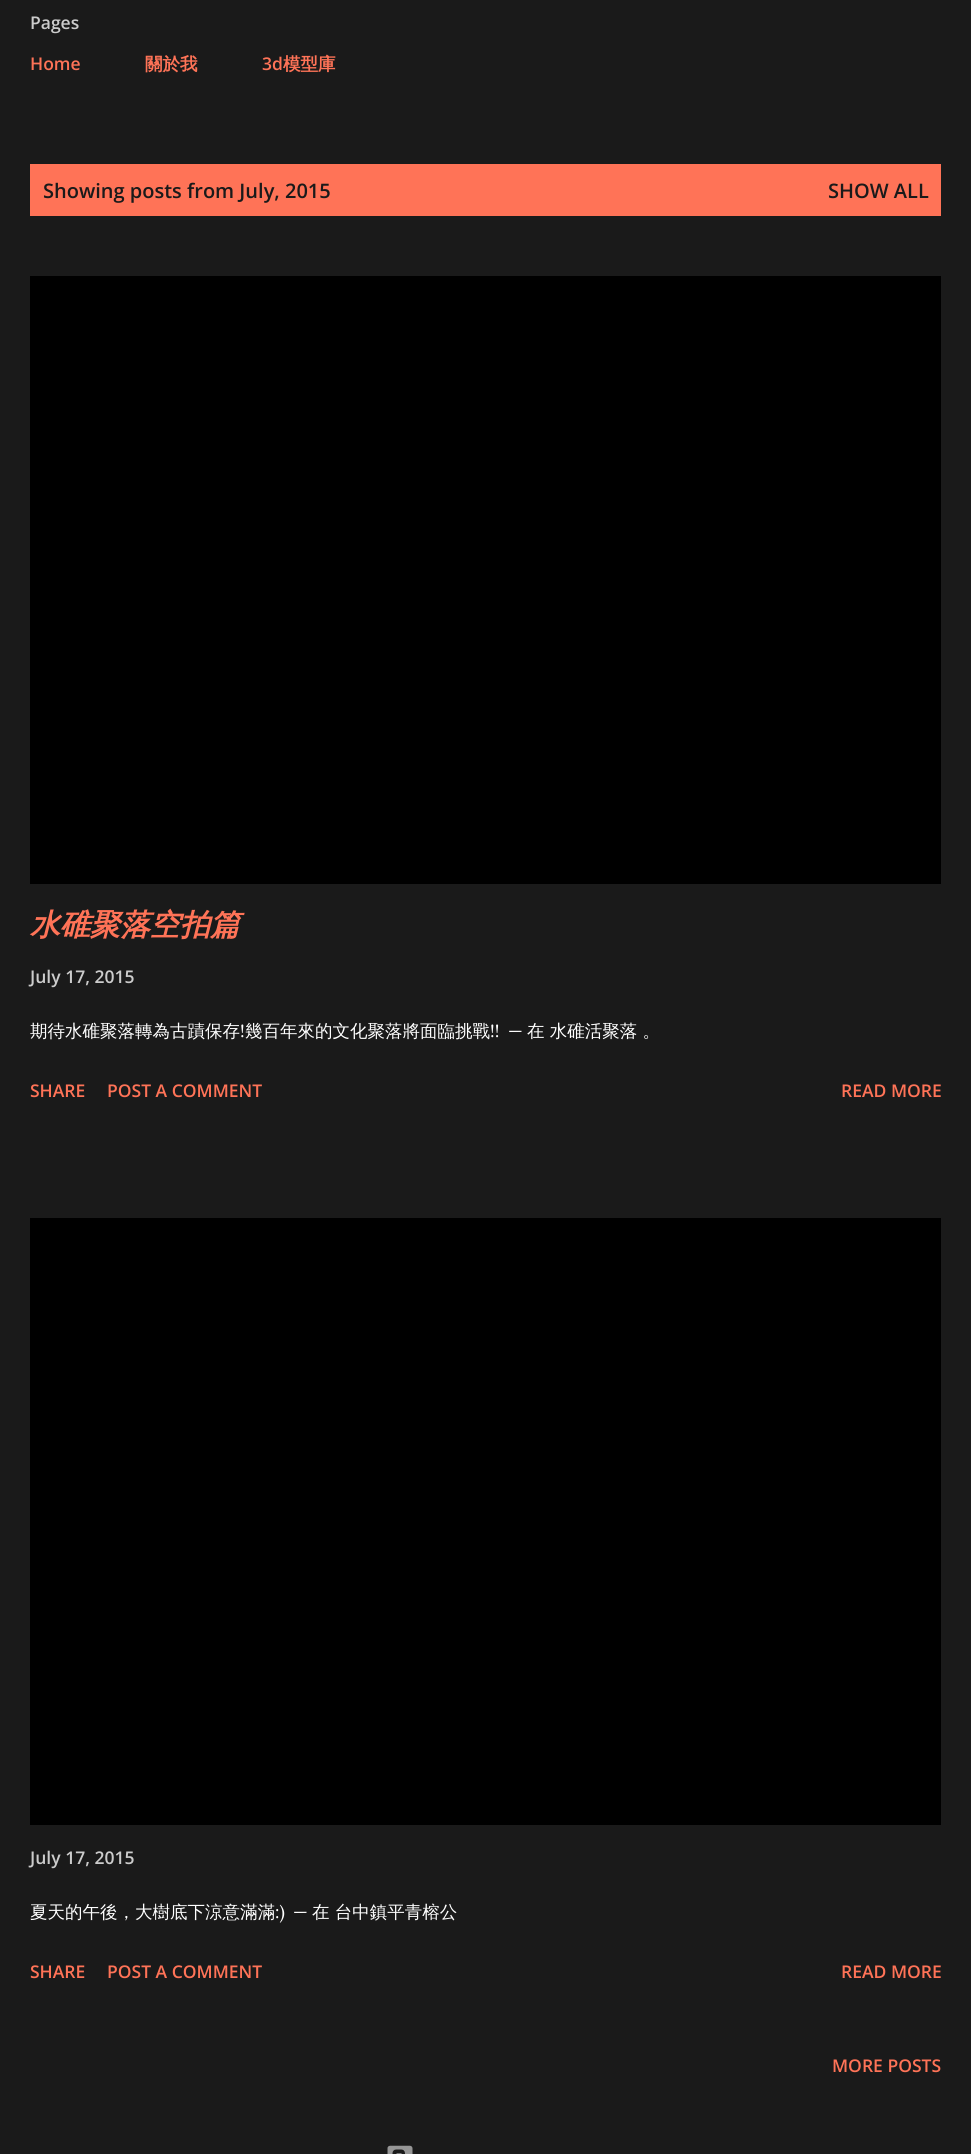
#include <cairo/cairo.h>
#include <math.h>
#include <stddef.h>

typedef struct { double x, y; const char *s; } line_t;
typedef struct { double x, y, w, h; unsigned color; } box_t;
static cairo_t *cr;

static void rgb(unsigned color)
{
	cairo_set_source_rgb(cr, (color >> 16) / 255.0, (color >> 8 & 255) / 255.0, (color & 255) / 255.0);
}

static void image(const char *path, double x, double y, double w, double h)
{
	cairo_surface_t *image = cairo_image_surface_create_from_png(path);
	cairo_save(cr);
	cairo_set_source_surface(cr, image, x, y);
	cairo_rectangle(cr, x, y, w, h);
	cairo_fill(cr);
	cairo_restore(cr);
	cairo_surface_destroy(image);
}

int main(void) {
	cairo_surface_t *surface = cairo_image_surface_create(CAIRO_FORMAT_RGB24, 971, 2154);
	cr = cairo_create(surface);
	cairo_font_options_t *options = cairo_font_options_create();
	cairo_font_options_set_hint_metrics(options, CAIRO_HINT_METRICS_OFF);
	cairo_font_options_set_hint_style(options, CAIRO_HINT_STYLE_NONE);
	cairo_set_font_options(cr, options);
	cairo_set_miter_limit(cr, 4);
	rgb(0x1a1a1a);
	cairo_paint(cr);
	{
		static const box_t items[] = {
			{30, 164, 911, 52, 0xff7357},
			{30, 276, 911, 608, 0x000000},
			{30, 1218, 911, 607, 0x000000},
		};
		for (size_t i = 0; i < sizeof items / sizeof *items; i++) {
			rgb(items[i].color);
			cairo_rectangle(cr, items[i].x, items[i].y, items[i].w, items[i].h);
			cairo_fill(cr);
		}
	}
	image("img/1.png", 387, 2145, 26, 9);
	cairo_select_font_face(cr, "Open Sans SemiBold", CAIRO_FONT_SLANT_NORMAL, CAIRO_FONT_WEIGHT_NORMAL);
	cairo_set_font_size(cr, 17.5);
	rgb(0xcccccc);
	cairo_move_to(cr, 30, 29);
	cairo_show_text(cr, "Pages");
	rgb(0xff7357);
	cairo_move_to(cr, 30, 70);
	cairo_show_text(cr, "Home");
	cairo_select_font_face(cr, "WenQuanYi Zen Hei", CAIRO_FONT_SLANT_NORMAL, CAIRO_FONT_WEIGHT_BOLD);
	cairo_move_to(cr, 145, 70);
	cairo_show_text(cr, "關於我");
	cairo_select_font_face(cr, "Open Sans SemiBold", CAIRO_FONT_SLANT_NORMAL, CAIRO_FONT_WEIGHT_NORMAL);
	cairo_move_to(cr, 262, 70);
	cairo_show_text(cr, "3d");
	cairo_select_font_face(cr, "WenQuanYi Zen Hei", CAIRO_FONT_SLANT_NORMAL, CAIRO_FONT_WEIGHT_BOLD);
	cairo_move_to(cr, 283, 70);
	cairo_show_text(cr, "模型庫");
	cairo_select_font_face(cr, "Open Sans SemiBold", CAIRO_FONT_SLANT_NORMAL, CAIRO_FONT_WEIGHT_NORMAL);
	cairo_set_font_size(cr, 20);
	rgb(0x1a1a1a);
	cairo_move_to(cr, 43, 198);
	cairo_show_text(cr, "Showing posts from July, 2015");
	cairo_move_to(cr, 828, 198);
	cairo_show_text(cr, "SHOW ALL");
	cairo_select_font_face(cr, "WenQuanYi Zen Hei", CAIRO_FONT_SLANT_ITALIC, CAIRO_FONT_WEIGHT_BOLD);
	cairo_set_font_size(cr, 30);
	rgb(0xff7357);
	cairo_move_to(cr, 30, 935);
	cairo_show_text(cr, "水碓聚落空拍篇");
	cairo_select_font_face(cr, "Open Sans SemiBold", CAIRO_FONT_SLANT_NORMAL, CAIRO_FONT_WEIGHT_NORMAL);
	cairo_set_font_size(cr, 17.5);
	rgb(0xcccccc);
	cairo_move_to(cr, 30, 983);
	cairo_show_text(cr, "July 17, 2015");
	cairo_select_font_face(cr, "WenQuanYi Zen Hei Medium", CAIRO_FONT_SLANT_NORMAL, CAIRO_FONT_WEIGHT_NORMAL);
	rgb(0xffffff);
	cairo_move_to(cr, 30, 1037);
	cairo_show_text(cr, "期待水碓聚落轉為古蹟保存");
	cairo_select_font_face(cr, "Lora", CAIRO_FONT_SLANT_NORMAL, CAIRO_FONT_WEIGHT_NORMAL);
	cairo_move_to(cr, 240, 1037);
	cairo_show_text(cr, "!");
	cairo_select_font_face(cr, "WenQuanYi Zen Hei Medium", CAIRO_FONT_SLANT_NORMAL, CAIRO_FONT_WEIGHT_NORMAL);
	cairo_move_to(cr, 245, 1037);
	cairo_show_text(cr, "幾百年來的文化聚落將面臨挑戰");
	cairo_select_font_face(cr, "Lora", CAIRO_FONT_SLANT_NORMAL, CAIRO_FONT_WEIGHT_NORMAL);
	cairo_move_to(cr, 490, 1037);
	cairo_show_text(cr, "!!");
	cairo_move_to(cr, 508, 1037);
	cairo_show_text(cr, "—");
	cairo_select_font_face(cr, "WenQuanYi Zen Hei Medium", CAIRO_FONT_SLANT_NORMAL, CAIRO_FONT_WEIGHT_NORMAL);
	cairo_move_to(cr, 527, 1037);
	cairo_show_text(cr, "在 水碓活聚落 。");
	cairo_select_font_face(cr, "Open Sans SemiBold", CAIRO_FONT_SLANT_NORMAL, CAIRO_FONT_WEIGHT_NORMAL);
	rgb(0xff7357);
	{
		static const line_t items[] = {
			{30, 1097, "SHARE"},
			{107, 1097, "POST A COMMENT"},
			{841, 1097, "READ MORE"},
		};
		for (size_t i = 0; i < sizeof items / sizeof *items; i++) {
			cairo_move_to(cr, items[i].x, items[i].y);
			cairo_show_text(cr, items[i].s);
		}
	}
	rgb(0xcccccc);
	cairo_move_to(cr, 30, 1864);
	cairo_show_text(cr, "July 17, 2015");
	cairo_select_font_face(cr, "WenQuanYi Zen Hei Medium", CAIRO_FONT_SLANT_NORMAL, CAIRO_FONT_WEIGHT_NORMAL);
	rgb(0xffffff);
	cairo_move_to(cr, 30, 1918);
	cairo_show_text(cr, "夏天的午後，大樹底下涼意滿滿");
	cairo_select_font_face(cr, "Lora", CAIRO_FONT_SLANT_NORMAL, CAIRO_FONT_WEIGHT_NORMAL);
	cairo_move_to(cr, 275, 1918);
	cairo_show_text(cr, ":)");
	cairo_move_to(cr, 293, 1918);
	cairo_show_text(cr, "—");
	cairo_select_font_face(cr, "WenQuanYi Zen Hei Medium", CAIRO_FONT_SLANT_NORMAL, CAIRO_FONT_WEIGHT_NORMAL);
	cairo_move_to(cr, 312, 1918);
	cairo_show_text(cr, "在 台中鎮平青榕公");
	cairo_select_font_face(cr, "Open Sans SemiBold", CAIRO_FONT_SLANT_NORMAL, CAIRO_FONT_WEIGHT_NORMAL);
	rgb(0xff7357);
	{
		static const line_t items[] = {
			{30, 1978, "SHARE"},
			{107, 1978, "POST A COMMENT"},
			{841, 1978, "READ MORE"},
			{832, 2072, "MORE POSTS"},
		};
		for (size_t i = 0; i < sizeof items / sizeof *items; i++) {
			cairo_move_to(cr, items[i].x, items[i].y);
			cairo_show_text(cr, items[i].s);
		}
	}
	cairo_surface_write_to_png(surface, "page.png");
	cairo_font_options_destroy(options);
	cairo_destroy(cr);
	cairo_surface_destroy(surface);
	return 0;
}
